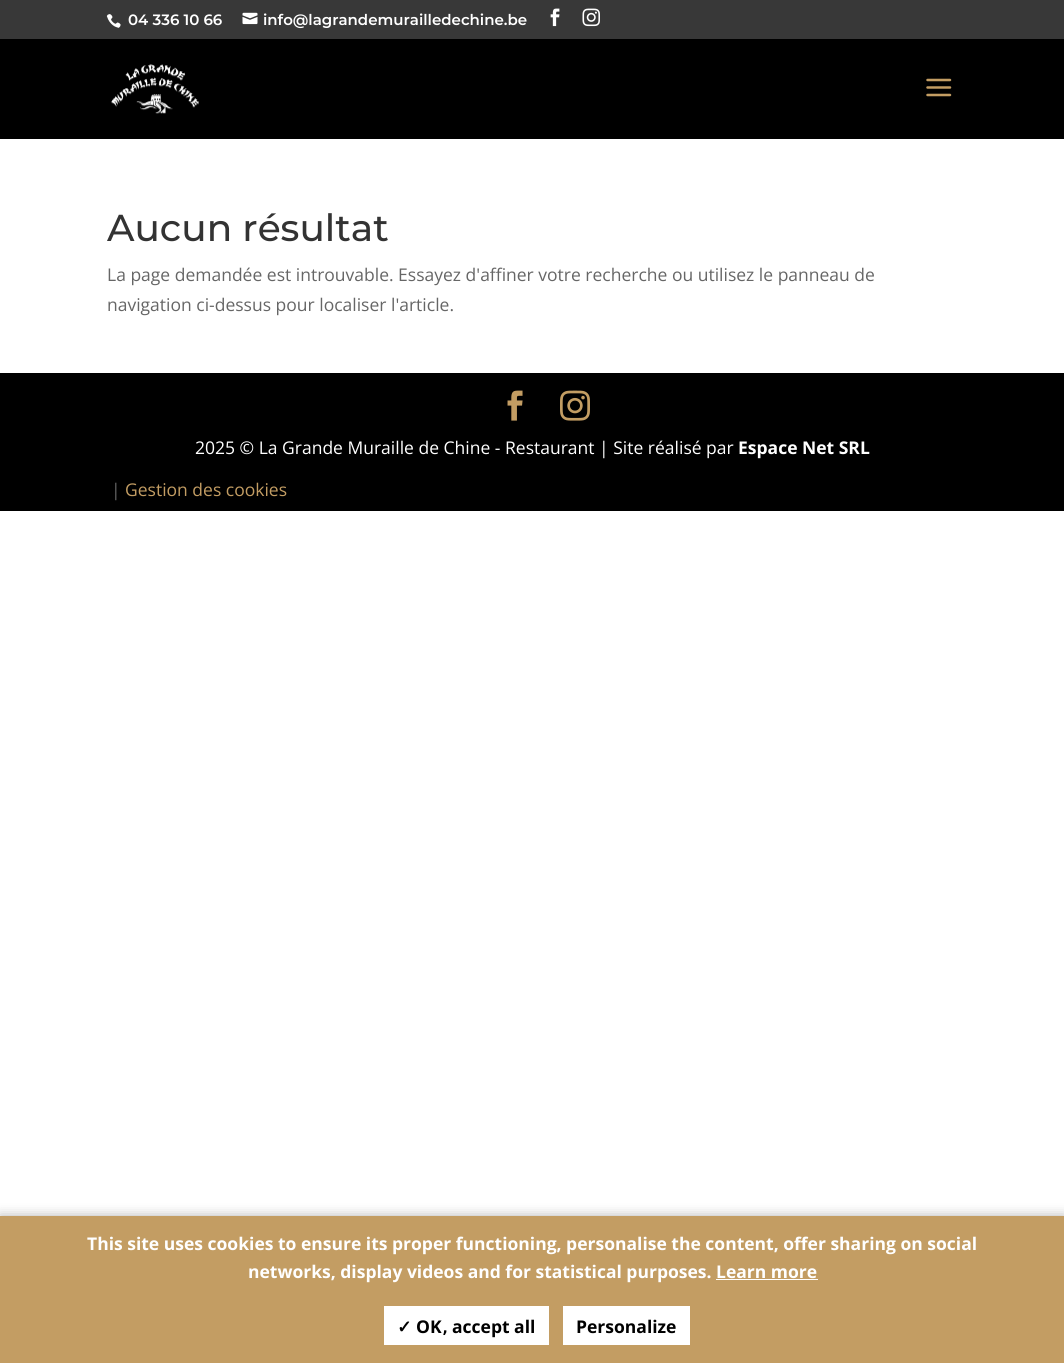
#include <cairo/cairo.h>
#include <math.h>
#include <stddef.h>

typedef struct { double x, y, w, h; unsigned color; } box_t;
static cairo_t *cr;

static void rgb(unsigned color)
{
	cairo_set_source_rgb(cr, (color >> 16) / 255.0, (color >> 8 & 255) / 255.0, (color & 255) / 255.0);
}

static void rrect(double x, double y, double w, double h, double r)
{
	cairo_new_sub_path(cr);
	cairo_arc(cr, x + w - r, y + h - r, r, 0, M_PI / 2);
	cairo_arc(cr, x + r, y + h - r, r, M_PI / 2, M_PI);
	cairo_arc(cr, x + r, y + r, r, M_PI, 1.5 * M_PI);
	cairo_arc(cr, x + w - r, y + r, r, 1.5 * M_PI, 2 * M_PI);
	cairo_close_path(cr);
}

static void soft_shadow(double x, double y, double w, double h, double r, double blur, double alpha)
{
	cairo_push_group_with_content(cr, CAIRO_CONTENT_ALPHA);
	cairo_set_operator(cr, CAIRO_OPERATOR_SOURCE);
	for (int i = 15; i >= -15 && fmin(w, h) + blur * i / 3 > 0; i -= 2) {
		double e = blur * i / 6;
		cairo_set_source_rgba(cr, 0, 0, 0, alpha * erfc((i - 1) / 8.5) / 2);
		rrect(x - e, y - e, w + 2 * e, h + 2 * e, fmax(0, fmin(r + e + blur * .6, fmin(w, h) / 2 + e)));
		cairo_fill(cr);
	}
	cairo_pattern_t *soft = cairo_pop_group(cr);
	cairo_mask(cr, soft);
	cairo_pattern_destroy(soft);
}

static void image(const char *path, double x, double y, double w, double h)
{
	cairo_surface_t *image = cairo_image_surface_create_from_png(path);
	cairo_save(cr);
	cairo_set_source_surface(cr, image, x, y);
	cairo_rectangle(cr, x, y, w, h);
	cairo_fill(cr);
	cairo_restore(cr);
	cairo_surface_destroy(image);
}

int main(void) {
	cairo_surface_t *surface = cairo_image_surface_create(CAIRO_FORMAT_RGB24, 1064, 1363);
	cr = cairo_create(surface);
	cairo_font_options_t *options = cairo_font_options_create();
	cairo_font_options_set_hint_metrics(options, CAIRO_HINT_METRICS_OFF);
	cairo_font_options_set_hint_style(options, CAIRO_HINT_STYLE_NONE);
	cairo_set_font_options(cr, options);
	cairo_set_miter_limit(cr, 4);
	rgb(0xffffff);
	cairo_paint(cr);
	rgb(0x383838);
	cairo_rectangle(cr, 0, 0, 1064, 39);
	cairo_fill(cr);
	image("img/1.png", 106, 14, 15, 14);
	image("img/2.png", 242, 12, 16, 13);
	image("img/3.png", 550, 8, 10, 19);
	image("img/4.png", 582, 8, 18, 19);
	rgb(0x000000);
	cairo_rectangle(cr, 0, 39, 1064, 100);
	cairo_fill(cr);
	image("img/5.png", 111, 64, 88, 50);
	image("img/6.png", 926, 78, 26, 19);
	cairo_rectangle(cr, 0, 373, 1064, 138);
	cairo_fill(cr);
	image("img/7.png", 507, 390, 16, 31);
	image("img/8.png", 560, 390, 30, 31);
	rgb(0x000000);
	soft_shadow(0, 1216, 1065, 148, 0, 6, 0.3);
	{
		static const box_t items[] = {
			{0, 1216, 1064, 147, 0xc39d63},
			{716, 1279, 102, 1, 0xffffff},
			{384, 1306, 165, 39, 0xffffff},
			{563, 1306, 127, 39, 0xffffff},
		};
		for (size_t i = 0; i < sizeof items / sizeof *items; i++) {
			rgb(items[i].color);
			cairo_rectangle(cr, items[i].x, items[i].y, items[i].w, items[i].h);
			cairo_fill(cr);
		}
	}
	cairo_select_font_face(cr, "Montserrat SemiBold", CAIRO_FONT_SLANT_NORMAL, CAIRO_FONT_WEIGHT_NORMAL);
	cairo_set_font_size(cr, 15);
	cairo_move_to(cr, 128, 25);
	cairo_show_text(cr, "04 336 10 66");
	cairo_move_to(cr, 263, 25);
	cairo_show_text(cr, "info@lagrandemurailledechine.be");
	cairo_select_font_face(cr, "Montserrat Medium", CAIRO_FONT_SLANT_NORMAL, CAIRO_FONT_WEIGHT_NORMAL);
	cairo_set_font_size(cr, 37.5);
	rgb(0x333333);
	cairo_move_to(cr, 107, 241);
	cairo_show_text(cr, "Aucun résultat");
	cairo_select_font_face(cr, "Open Sans", CAIRO_FONT_SLANT_NORMAL, CAIRO_FONT_WEIGHT_NORMAL);
	cairo_set_font_size(cr, 17.5);
	rgb(0x666666);
	cairo_move_to(cr, 107, 281);
	cairo_show_text(cr, "La page demandée est introuvable. Essayez d'affiner votre recherche ou utilisez le panneau de");
	cairo_move_to(cr, 107, 311);
	cairo_show_text(cr, "navigation ci-dessus pour localiser l'article.");
	rgb(0xffffff);
	cairo_move_to(cr, 195, 454);
	cairo_show_text(cr, "2025 © La Grande Muraille de Chine - Restaurant | Site réalisé par");
	cairo_select_font_face(cr, "Open Sans", CAIRO_FONT_SLANT_NORMAL, CAIRO_FONT_WEIGHT_BOLD);
	cairo_move_to(cr, 738, 454);
	cairo_show_text(cr, "Espace Net SRL");
	cairo_select_font_face(cr, "Open Sans", CAIRO_FONT_SLANT_NORMAL, CAIRO_FONT_WEIGHT_NORMAL);
	rgb(0x666666);
	cairo_move_to(cr, 111, 496);
	cairo_show_text(cr, "|");
	rgb(0xc39d63);
	cairo_move_to(cr, 125, 496);
	cairo_show_text(cr, "Gestion des cookies");
	cairo_select_font_face(cr, "Open Sans", CAIRO_FONT_SLANT_NORMAL, CAIRO_FONT_WEIGHT_BOLD);
	rgb(0xffffff);
	cairo_move_to(cr, 87, 1250);
	cairo_show_text(cr, "This site uses cookies to ensure its proper functioning, personalise the content, offer sharing on social");
	cairo_move_to(cr, 248, 1278);
	cairo_show_text(cr, "networks, display videos and for statistical purposes. Learn more");
	cairo_select_font_face(cr, "DejaVu Sans", CAIRO_FONT_SLANT_NORMAL, CAIRO_FONT_WEIGHT_BOLD);
	rgb(0x000000);
	cairo_move_to(cr, 397, 1333);
	cairo_show_text(cr, "✓");
	cairo_select_font_face(cr, "Open Sans", CAIRO_FONT_SLANT_NORMAL, CAIRO_FONT_WEIGHT_BOLD);
	cairo_move_to(cr, 416, 1333);
	cairo_show_text(cr, "OK");
	cairo_move_to(cr, 452, 1333);
	cairo_show_text(cr, "accept all");
	cairo_select_font_face(cr, "DejaVu Sans", CAIRO_FONT_SLANT_NORMAL, CAIRO_FONT_WEIGHT_BOLD);
	cairo_move_to(cr, 442, 1333);
	cairo_show_text(cr, ",");
	cairo_select_font_face(cr, "Open Sans", CAIRO_FONT_SLANT_NORMAL, CAIRO_FONT_WEIGHT_BOLD);
	cairo_move_to(cr, 576, 1333);
	cairo_show_text(cr, "Personalize");
	cairo_surface_write_to_png(surface, "page.png");
	cairo_font_options_destroy(options);
	cairo_destroy(cr);
	cairo_surface_destroy(surface);
	return 0;
}
